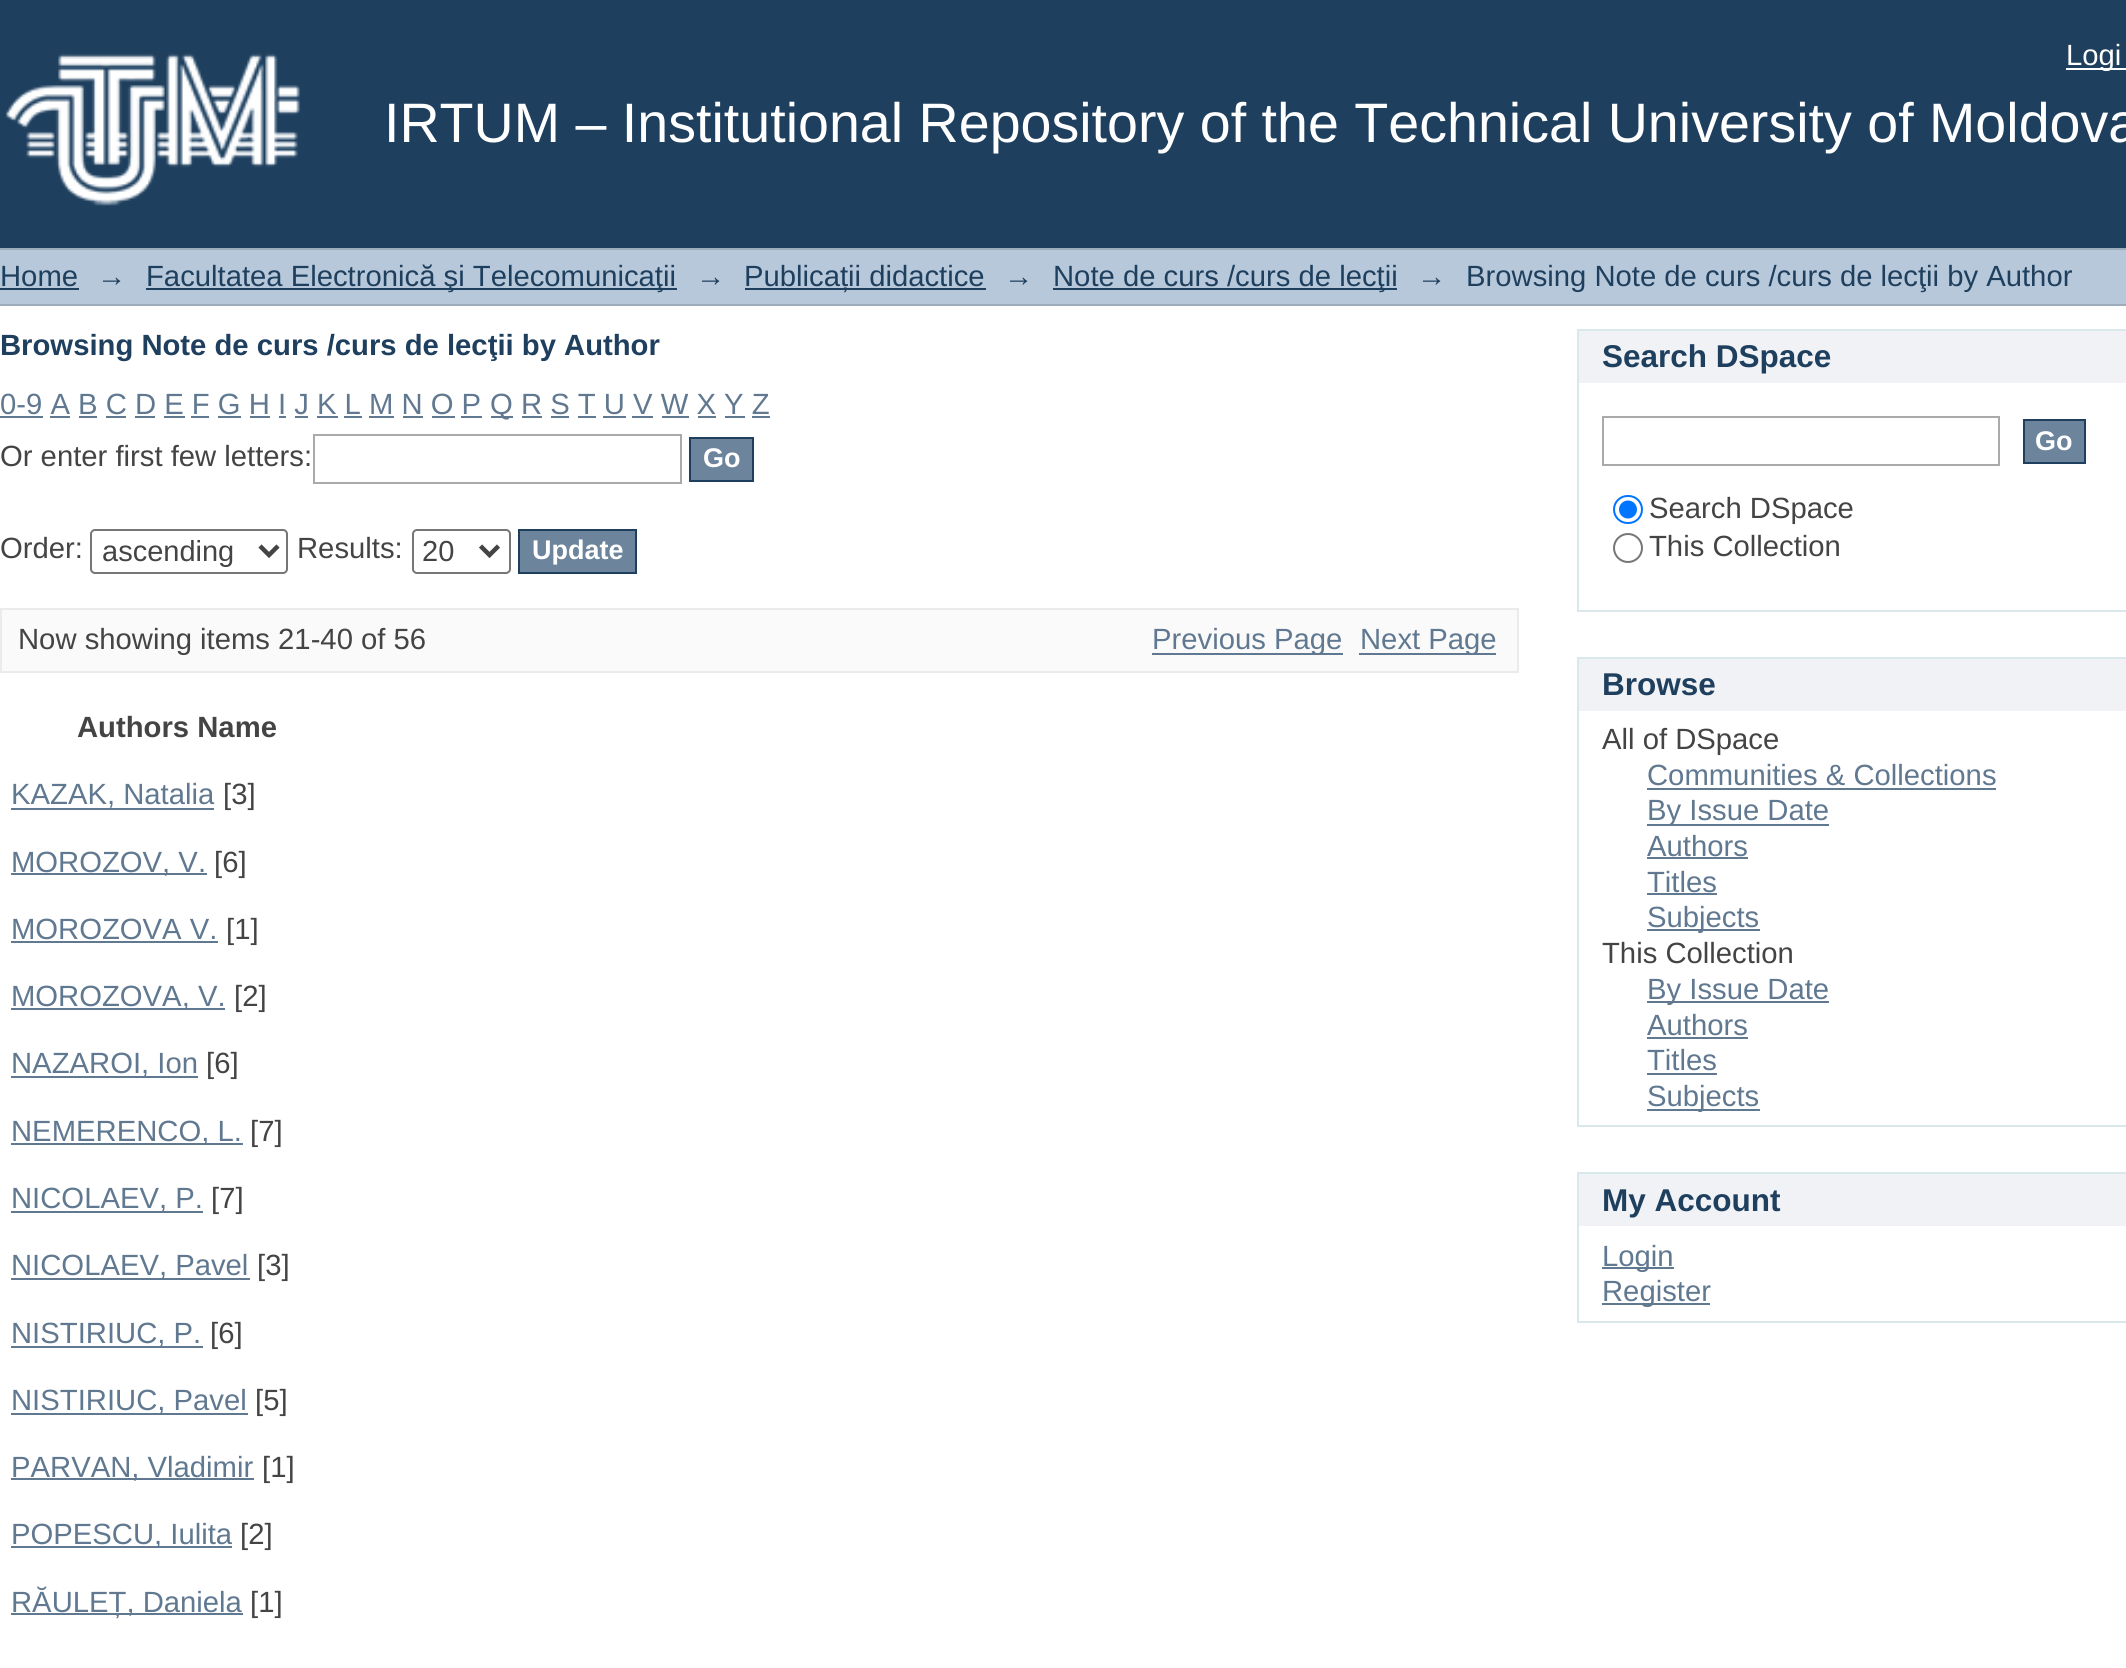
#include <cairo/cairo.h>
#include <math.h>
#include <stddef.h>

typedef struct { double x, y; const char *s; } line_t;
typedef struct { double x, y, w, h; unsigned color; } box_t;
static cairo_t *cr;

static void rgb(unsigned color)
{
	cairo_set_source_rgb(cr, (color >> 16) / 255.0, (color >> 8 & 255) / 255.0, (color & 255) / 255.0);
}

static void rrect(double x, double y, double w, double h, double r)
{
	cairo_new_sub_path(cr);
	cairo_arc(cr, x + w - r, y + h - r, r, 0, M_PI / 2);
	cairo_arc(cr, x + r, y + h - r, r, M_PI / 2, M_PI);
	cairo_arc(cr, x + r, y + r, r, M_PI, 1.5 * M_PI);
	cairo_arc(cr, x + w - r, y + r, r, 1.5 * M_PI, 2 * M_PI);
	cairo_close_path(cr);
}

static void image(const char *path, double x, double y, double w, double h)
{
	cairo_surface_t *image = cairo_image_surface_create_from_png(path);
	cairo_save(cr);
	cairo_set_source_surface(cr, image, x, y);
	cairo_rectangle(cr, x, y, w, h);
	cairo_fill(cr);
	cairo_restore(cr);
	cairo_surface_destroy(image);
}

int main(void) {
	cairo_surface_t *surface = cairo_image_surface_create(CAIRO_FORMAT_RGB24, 2126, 1668);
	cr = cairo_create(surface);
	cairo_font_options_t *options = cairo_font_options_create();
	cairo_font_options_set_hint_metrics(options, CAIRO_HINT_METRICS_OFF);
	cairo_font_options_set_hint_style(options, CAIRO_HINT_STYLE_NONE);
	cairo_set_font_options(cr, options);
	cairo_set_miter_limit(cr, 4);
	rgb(0xffffff);
	cairo_paint(cr);
	rgb(0x1f3f5e);
	cairo_rectangle(cr, 0, 0, 2126, 248);
	cairo_fill(cr);
	rgb(0xffffff);
	cairo_rectangle(cr, 2066, 68, 60, 2);
	cairo_fill(cr);
	image("img/1.png", 6, 53, 294, 153);
	{
		static const box_t items[] = {
			{0, 250, 2126, 54, 0xb6c8d9},
			{0, 248, 2126, 2, 0x9cacba},
			{0, 304, 2126, 2, 0x9cacba},
			{0, 288, 79, 2, 0x1f3f5e},
			{146, 288, 531, 2, 0x1f3f5e},
			{745, 288, 241, 2, 0x1f3f5e},
			{1053, 288, 344, 2, 0x1f3f5e},
			{0, 416, 43, 2, 0x607890},
			{491, 416, 22, 2, 0x607890},
			{50, 416, 20, 2, 0x607890},
			{79, 416, 18, 2, 0x607890},
			{106, 416, 20, 2, 0x607890},
			{135, 416, 20, 2, 0x607890},
			{164, 416, 21, 2, 0x607890},
			{191, 416, 18, 2, 0x607890},
			{218, 416, 23, 2, 0x607890},
			{250, 416, 20, 2, 0x607890},
			{279, 416, 7, 2, 0x607890},
			{295, 416, 13, 2, 0x607890},
			{317, 416, 21, 2, 0x607890},
			{344, 416, 18, 2, 0x607890},
			{369, 416, 25, 2, 0x607890},
			{403, 416, 20, 2, 0x607890},
			{432, 416, 23, 2, 0x607890},
			{461, 416, 21, 2, 0x607890},
			{522, 416, 20, 2, 0x607890},
			{551, 416, 18, 2, 0x607890},
			{578, 416, 18, 2, 0x607890},
			{603, 416, 23, 2, 0x607890},
			{632, 416, 21, 2, 0x607890},
			{662, 416, 27, 2, 0x607890},
			{698, 416, 18, 2, 0x607890},
			{725, 416, 20, 2, 0x607890},
			{752, 416, 18, 2, 0x607890},
		};
		for (size_t i = 0; i < sizeof items / sizeof *items; i++) {
			rgb(items[i].color);
			cairo_rectangle(cr, items[i].x, items[i].y, items[i].w, items[i].h);
			cairo_fill(cr);
		}
	}
	cairo_rectangle(cr, 314, 435, 367, 48);
	rgb(0xaaaaaa);
	cairo_stroke(cr);
	rgb(0x6d859c);
	cairo_rectangle(cr, 690, 438, 63, 43);
	cairo_fill_preserve(cr);
	rgb(0x1f3f5e);
	cairo_stroke(cr);
	rrect(91, 530, 196, 43, 4);
	rgb(0x767676);
	cairo_stroke(cr);
	cairo_new_path(cr);
	cairo_move_to(cr, 260, 546);
	cairo_line_to(cr, 269, 555);
	cairo_line_to(cr, 278, 546);
	rgb(0x444444);
	cairo_set_line_width(cr, 4.5);
	cairo_stroke(cr);
	rrect(413, 530, 97, 43, 4);
	rgb(0x767676);
	cairo_set_line_width(cr, 2);
	cairo_stroke(cr);
	cairo_new_path(cr);
	cairo_move_to(cr, 480.5, 546);
	cairo_line_to(cr, 489.5, 555);
	cairo_line_to(cr, 498.5, 546);
	rgb(0x444444);
	cairo_set_line_width(cr, 4.5);
	cairo_stroke(cr);
	rgb(0x6d859c);
	cairo_rectangle(cr, 519, 530, 117, 43);
	cairo_fill_preserve(cr);
	rgb(0x1f3f5e);
	cairo_set_line_width(cr, 2);
	cairo_stroke(cr);
	rgb(0xfafafa);
	cairo_rectangle(cr, 1, 609, 1517, 63);
	cairo_fill_preserve(cr);
	rgb(0xebebeb);
	cairo_stroke(cr);
	{
		static const box_t items[] = {
			{1152, 653, 191, 2, 0x607890},
			{1359, 653, 137, 2, 0x607890},
			{11, 808, 203, 2, 0x607890},
			{11, 873, 196, 2, 0x607890},
			{11, 941, 207, 2, 0x607890},
			{11, 1008, 214, 2, 0x607890},
			{11, 1076, 187, 2, 0x607890},
			{11, 1143, 232, 2, 0x607890},
			{11, 1211, 192, 2, 0x607890},
			{11, 1278, 239, 2, 0x607890},
			{11, 1346, 192, 2, 0x607890},
			{11, 1413, 237, 2, 0x607890},
			{11, 1478, 243, 2, 0x607890},
			{11, 1546, 221, 2, 0x607890},
			{11, 1613, 232, 2, 0x607890},
			{1579, 331, 547, 52, 0xf0f2f5},
			{1577, 329, 549, 2, 0xd8e8eb},
			{1577, 329, 2, 54, 0xd8e8eb},
			{1577, 610, 549, 2, 0xd8e8eb},
			{1577, 383, 2, 229, 0xd8e8eb},
		};
		for (size_t i = 0; i < sizeof items / sizeof *items; i++) {
			rgb(items[i].color);
			cairo_rectangle(cr, items[i].x, items[i].y, items[i].w, items[i].h);
			cairo_fill(cr);
		}
	}
	cairo_rectangle(cr, 1603, 417, 396, 48);
	rgb(0xaaaaaa);
	cairo_stroke(cr);
	rgb(0x6d859c);
	cairo_rectangle(cr, 2024, 420, 61, 43);
	cairo_fill_preserve(cr);
	rgb(0x1f3f5e);
	cairo_stroke(cr);
	rrect(1614, 496, 28, 27, 13.5);
	rgb(0x0075ff);
	cairo_stroke(cr);
	cairo_arc(cr, 1628, 509.5, 9, 0, 2 * M_PI);
	cairo_fill(cr);
	cairo_arc(cr, 1628, 548, 14, 0, 2 * M_PI);
	rgb(0x767676);
	cairo_stroke(cr);
	{
		static const box_t items[] = {
			{1579, 659, 547, 52, 0xf0f2f5},
			{1577, 657, 549, 2, 0xd8e8eb},
			{1577, 657, 2, 54, 0xd8e8eb},
			{1577, 1125, 549, 2, 0xd8e8eb},
			{1577, 711, 2, 416, 0xd8e8eb},
			{1647, 788, 349, 2, 0x607890},
			{1647, 824, 182, 2, 0x607890},
			{1647, 857, 101, 2, 0x607890},
			{1647, 893, 70, 2, 0x607890},
			{1647, 929, 113, 2, 0x607890},
			{1647, 1001, 182, 2, 0x607890},
			{1647, 1037, 101, 2, 0x607890},
			{1647, 1073, 70, 2, 0x607890},
			{1647, 1109, 113, 2, 0x607890},
			{1579, 1174, 547, 52, 0xf0f2f5},
			{1577, 1172, 549, 2, 0xd8e8eb},
			{1577, 1172, 2, 54, 0xd8e8eb},
			{1577, 1321, 549, 2, 0xd8e8eb},
			{1577, 1226, 2, 97, 0xd8e8eb},
			{1602, 1267, 72, 2, 0x607890},
			{1602, 1303, 108, 2, 0x607890},
		};
		for (size_t i = 0; i < sizeof items / sizeof *items; i++) {
			rgb(items[i].color);
			cairo_rectangle(cr, items[i].x, items[i].y, items[i].w, items[i].h);
			cairo_fill(cr);
		}
	}
	cairo_select_font_face(cr, "Liberation Sans", CAIRO_FONT_SLANT_NORMAL, CAIRO_FONT_WEIGHT_NORMAL);
	cairo_set_font_size(cr, 29.25);
	rgb(0xffffff);
	cairo_move_to(cr, 2066, 65);
	cairo_show_text(cr, "Logi");
	cairo_set_font_size(cr, 55.6);
	cairo_move_to(cr, 384, 142);
	cairo_show_text(cr, "IRTUM – Institutional Repository of the Technical University of Moldova");
	cairo_set_font_size(cr, 29.25);
	rgb(0x1f3f5e);
	{
		static const line_t items[] = {
			{0, 286, "Home"},
			{97, 286, "→"},
			{146, 286, "Facultatea Electronică şi Telecomunicaţii"},
			{696, 286, "→"},
			{744, 286, "Publicații didactice"},
			{1004, 286, "→"},
			{1053, 286, "Note de curs /curs de lecţii"},
			{1417, 286, "→"},
			{1466, 286, "Browsing Note de curs /curs de lecţii by Author"},
		};
		for (size_t i = 0; i < sizeof items / sizeof *items; i++) {
			cairo_move_to(cr, items[i].x, items[i].y);
			cairo_show_text(cr, items[i].s);
		}
	}
	cairo_select_font_face(cr, "Liberation Sans", CAIRO_FONT_SLANT_NORMAL, CAIRO_FONT_WEIGHT_BOLD);
	cairo_move_to(cr, 0, 355);
	cairo_show_text(cr, "Browsing Note de curs /curs de lecţii by Author");
	cairo_select_font_face(cr, "Liberation Sans", CAIRO_FONT_SLANT_NORMAL, CAIRO_FONT_WEIGHT_NORMAL);
	rgb(0x607890);
	cairo_move_to(cr, 0, 414);
	cairo_show_text(cr, "0-9 A B C D E F G H I J K L M N O P");
	cairo_move_to(cr, 490, 414);
	cairo_show_text(cr, "Q R S T U V W X Y Z");
	rgb(0x444444);
	cairo_move_to(cr, 0, 466);
	cairo_show_text(cr, "Or enter first few letters:");
	cairo_select_font_face(cr, "Liberation Sans", CAIRO_FONT_SLANT_NORMAL, CAIRO_FONT_WEIGHT_BOLD);
	cairo_set_font_size(cr, 27);
	rgb(0xffffff);
	cairo_move_to(cr, 703, 467);
	cairo_show_text(cr, "Go");
	cairo_select_font_face(cr, "Liberation Sans", CAIRO_FONT_SLANT_NORMAL, CAIRO_FONT_WEIGHT_NORMAL);
	cairo_set_font_size(cr, 29.25);
	rgb(0x444444);
	cairo_move_to(cr, 0, 558);
	cairo_show_text(cr, "Order:");
	cairo_set_font_size(cr, 29);
	cairo_move_to(cr, 102, 561);
	cairo_show_text(cr, "ascending");
	cairo_set_font_size(cr, 29.25);
	cairo_move_to(cr, 297, 558);
	cairo_show_text(cr, "Results:");
	cairo_set_font_size(cr, 29);
	cairo_move_to(cr, 422, 561);
	cairo_show_text(cr, "20");
	cairo_select_font_face(cr, "Liberation Sans", CAIRO_FONT_SLANT_NORMAL, CAIRO_FONT_WEIGHT_BOLD);
	cairo_set_font_size(cr, 27);
	rgb(0xffffff);
	cairo_move_to(cr, 532, 559);
	cairo_show_text(cr, "Update");
	cairo_select_font_face(cr, "Liberation Sans", CAIRO_FONT_SLANT_NORMAL, CAIRO_FONT_WEIGHT_NORMAL);
	cairo_set_font_size(cr, 29.25);
	rgb(0x444444);
	cairo_move_to(cr, 18, 649);
	cairo_show_text(cr, "Now showing items 21-40 of 56");
	rgb(0x607890);
	cairo_move_to(cr, 1152, 649);
	cairo_show_text(cr, "Previous Page");
	cairo_move_to(cr, 1360, 649);
	cairo_show_text(cr, "Next Page");
	cairo_select_font_face(cr, "Liberation Sans", CAIRO_FONT_SLANT_NORMAL, CAIRO_FONT_WEIGHT_BOLD);
	rgb(0x444444);
	cairo_move_to(cr, 77, 737);
	cairo_show_text(cr, "Authors Name");
	cairo_select_font_face(cr, "Liberation Sans", CAIRO_FONT_SLANT_NORMAL, CAIRO_FONT_WEIGHT_NORMAL);
	rgb(0x607890);
	cairo_move_to(cr, 11, 804);
	cairo_show_text(cr, "KAZAK, Natalia");
	rgb(0x444444);
	cairo_move_to(cr, 223, 804);
	cairo_show_text(cr, "[3]");
	rgb(0x607890);
	cairo_move_to(cr, 11, 872);
	cairo_show_text(cr, "MOROZOV, V.");
	rgb(0x444444);
	cairo_move_to(cr, 214, 872);
	cairo_show_text(cr, "[6]");
	rgb(0x607890);
	cairo_move_to(cr, 11, 939);
	cairo_show_text(cr, "MOROZOVA V.");
	rgb(0x444444);
	cairo_move_to(cr, 226, 939);
	cairo_show_text(cr, "[1]");
	rgb(0x607890);
	cairo_move_to(cr, 11, 1006);
	cairo_show_text(cr, "MOROZOVA, V.");
	rgb(0x444444);
	cairo_move_to(cr, 234, 1006);
	cairo_show_text(cr, "[2]");
	rgb(0x607890);
	cairo_move_to(cr, 11, 1073);
	cairo_show_text(cr, "NAZAROI, Ion");
	rgb(0x444444);
	cairo_move_to(cr, 206, 1073);
	cairo_show_text(cr, "[6]");
	rgb(0x607890);
	cairo_move_to(cr, 11, 1141);
	cairo_show_text(cr, "NEMERENCO, L.");
	rgb(0x444444);
	cairo_move_to(cr, 250, 1141);
	cairo_show_text(cr, "[7]");
	rgb(0x607890);
	cairo_move_to(cr, 11, 1208);
	cairo_show_text(cr, "NICOLAEV, P.");
	rgb(0x444444);
	cairo_move_to(cr, 211, 1208);
	cairo_show_text(cr, "[7]");
	rgb(0x607890);
	cairo_move_to(cr, 11, 1275);
	cairo_show_text(cr, "NICOLAEV, Pavel");
	rgb(0x444444);
	cairo_move_to(cr, 257, 1275);
	cairo_show_text(cr, "[3]");
	rgb(0x607890);
	cairo_move_to(cr, 11, 1343);
	cairo_show_text(cr, "NISTIRIUC, P.");
	rgb(0x444444);
	cairo_move_to(cr, 210, 1343);
	cairo_show_text(cr, "[6]");
	rgb(0x607890);
	cairo_move_to(cr, 11, 1410);
	cairo_show_text(cr, "NISTIRIUC, Pavel");
	rgb(0x444444);
	cairo_move_to(cr, 255, 1410);
	cairo_show_text(cr, "[5]");
	rgb(0x607890);
	cairo_move_to(cr, 11, 1477);
	cairo_show_text(cr, "PARVAN, Vladimir");
	rgb(0x444444);
	cairo_move_to(cr, 262, 1477);
	cairo_show_text(cr, "[1]");
	rgb(0x607890);
	cairo_move_to(cr, 11, 1544);
	cairo_show_text(cr, "POPESCU, Iulita");
	rgb(0x444444);
	cairo_move_to(cr, 240, 1544);
	cairo_show_text(cr, "[2]");
	rgb(0x607890);
	cairo_move_to(cr, 11, 1612);
	cairo_show_text(cr, "RĂULEȚ, Daniela");
	rgb(0x444444);
	cairo_move_to(cr, 250, 1612);
	cairo_show_text(cr, "[1]");
	cairo_select_font_face(cr, "Liberation Sans", CAIRO_FONT_SLANT_NORMAL, CAIRO_FONT_WEIGHT_BOLD);
	cairo_set_font_size(cr, 31.5);
	rgb(0x1f3f5e);
	cairo_move_to(cr, 1602, 367);
	cairo_show_text(cr, "Search DSpace");
	cairo_set_font_size(cr, 27);
	rgb(0xffffff);
	cairo_move_to(cr, 2035, 450);
	cairo_show_text(cr, "Go");
	cairo_select_font_face(cr, "Liberation Sans", CAIRO_FONT_SLANT_NORMAL, CAIRO_FONT_WEIGHT_NORMAL);
	cairo_set_font_size(cr, 29.25);
	rgb(0x444444);
	cairo_move_to(cr, 1649, 518);
	cairo_show_text(cr, "Search DSpace");
	cairo_move_to(cr, 1649, 556);
	cairo_show_text(cr, "This Collection");
	cairo_select_font_face(cr, "Liberation Sans", CAIRO_FONT_SLANT_NORMAL, CAIRO_FONT_WEIGHT_BOLD);
	cairo_set_font_size(cr, 31.5);
	rgb(0x1f3f5e);
	cairo_move_to(cr, 1602, 695);
	cairo_show_text(cr, "Browse");
	cairo_select_font_face(cr, "Liberation Sans", CAIRO_FONT_SLANT_NORMAL, CAIRO_FONT_WEIGHT_NORMAL);
	cairo_set_font_size(cr, 29.25);
	rgb(0x444444);
	cairo_move_to(cr, 1602, 749);
	cairo_show_text(cr, "All of DSpace");
	rgb(0x607890);
	{
		static const line_t items[] = {
			{1647, 785, "Communities & Collections"},
			{1647, 820, "By Issue Date"},
			{1647, 856, "Authors"},
			{1647, 892, "Titles"},
			{1647, 927, "Subjects"},
		};
		for (size_t i = 0; i < sizeof items / sizeof *items; i++) {
			cairo_move_to(cr, items[i].x, items[i].y);
			cairo_show_text(cr, items[i].s);
		}
	}
	rgb(0x444444);
	cairo_move_to(cr, 1602, 963);
	cairo_show_text(cr, "This Collection");
	rgb(0x607890);
	{
		static const line_t items[] = {
			{1647, 999, "By Issue Date"},
			{1647, 1035, "Authors"},
			{1647, 1070, "Titles"},
			{1647, 1106, "Subjects"},
		};
		for (size_t i = 0; i < sizeof items / sizeof *items; i++) {
			cairo_move_to(cr, items[i].x, items[i].y);
			cairo_show_text(cr, items[i].s);
		}
	}
	cairo_select_font_face(cr, "Liberation Sans", CAIRO_FONT_SLANT_NORMAL, CAIRO_FONT_WEIGHT_BOLD);
	cairo_set_font_size(cr, 31.5);
	rgb(0x1f3f5e);
	cairo_move_to(cr, 1602, 1211);
	cairo_show_text(cr, "My Account");
	cairo_select_font_face(cr, "Liberation Sans", CAIRO_FONT_SLANT_NORMAL, CAIRO_FONT_WEIGHT_NORMAL);
	cairo_set_font_size(cr, 29.25);
	rgb(0x607890);
	cairo_move_to(cr, 1602, 1266);
	cairo_show_text(cr, "Login");
	cairo_move_to(cr, 1602, 1301);
	cairo_show_text(cr, "Register");
	cairo_surface_write_to_png(surface, "page.png");
	cairo_font_options_destroy(options);
	cairo_destroy(cr);
	cairo_surface_destroy(surface);
	return 0;
}
